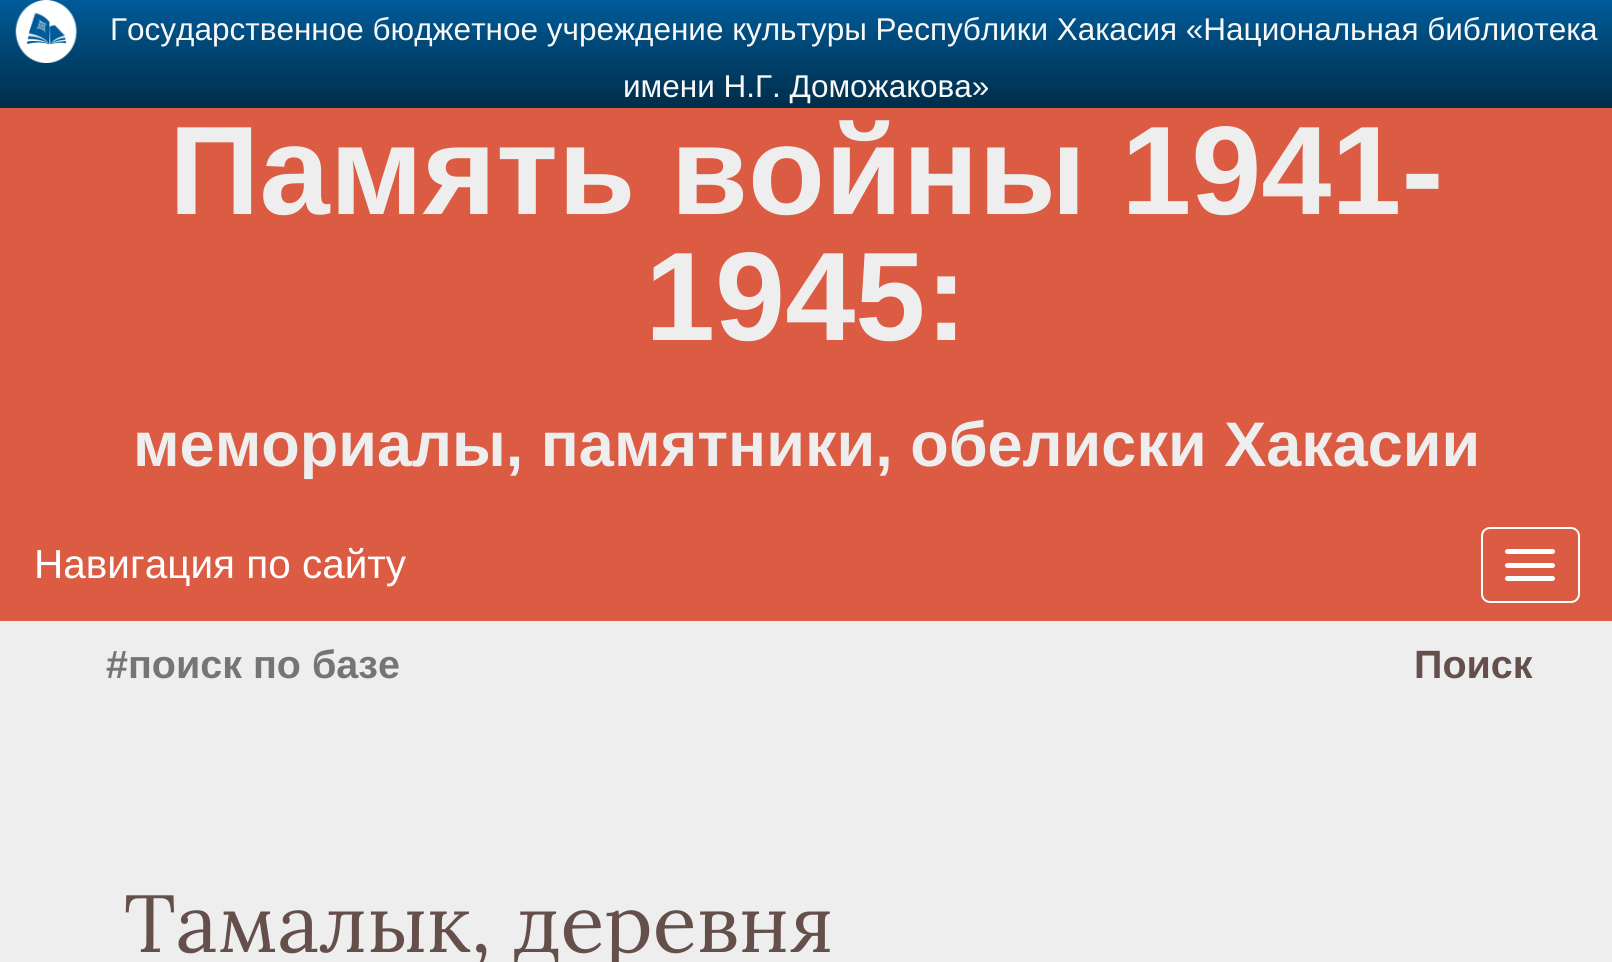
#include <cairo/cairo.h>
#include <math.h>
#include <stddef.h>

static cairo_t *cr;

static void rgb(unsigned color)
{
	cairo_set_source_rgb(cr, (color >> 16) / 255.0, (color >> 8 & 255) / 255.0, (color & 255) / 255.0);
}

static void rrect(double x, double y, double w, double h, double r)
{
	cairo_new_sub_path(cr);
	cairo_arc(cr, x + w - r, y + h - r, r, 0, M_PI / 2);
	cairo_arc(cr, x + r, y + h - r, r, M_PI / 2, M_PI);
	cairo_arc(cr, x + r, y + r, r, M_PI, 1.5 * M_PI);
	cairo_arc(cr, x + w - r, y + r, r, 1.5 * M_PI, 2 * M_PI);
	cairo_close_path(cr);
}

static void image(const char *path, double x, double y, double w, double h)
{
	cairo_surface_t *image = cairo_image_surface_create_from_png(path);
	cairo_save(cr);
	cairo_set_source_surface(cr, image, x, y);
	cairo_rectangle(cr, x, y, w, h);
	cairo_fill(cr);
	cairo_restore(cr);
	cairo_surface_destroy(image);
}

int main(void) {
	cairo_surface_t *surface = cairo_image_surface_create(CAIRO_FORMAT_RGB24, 1612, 962);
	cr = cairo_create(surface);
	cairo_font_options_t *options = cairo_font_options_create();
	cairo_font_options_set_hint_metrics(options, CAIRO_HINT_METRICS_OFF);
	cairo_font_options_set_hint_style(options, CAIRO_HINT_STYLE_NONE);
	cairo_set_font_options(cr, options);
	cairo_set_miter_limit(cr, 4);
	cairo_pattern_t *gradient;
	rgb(0xdb5b43);
	cairo_paint(cr);
	gradient = cairo_pattern_create_linear(807, 108, 807, 0);
	cairo_pattern_add_color_stop_rgba(gradient, 0, 0, 0.176, 0.286, 1);
	cairo_pattern_add_color_stop_rgba(gradient, 1, 0, 0.357, 0.6, 1);
	cairo_set_source(cr, gradient);
	cairo_pattern_destroy(gradient);
	cairo_rectangle(cr, 0, 0, 1612, 108);
	cairo_fill(cr);
	image("img/1.png", 15, 0, 62, 63);
	rrect(1482, 528, 97, 74, 8);
	rgb(0xffffff);
	cairo_stroke(cr);
	rrect(1505, 549, 50, 5, 2.5);
	cairo_fill(cr);
	rrect(1505, 563, 50, 5, 2.5);
	cairo_fill(cr);
	rrect(1505, 576, 50, 5, 2.5);
	cairo_fill(cr);
	rgb(0xeeeeee);
	cairo_rectangle(cr, 0, 621, 1612, 341);
	cairo_fill(cr);
	cairo_select_font_face(cr, "Liberation Sans", CAIRO_FONT_SLANT_NORMAL, CAIRO_FONT_WEIGHT_NORMAL);
	cairo_set_font_size(cr, 31.5);
	rgb(0xf8f8f8);
	cairo_move_to(cr, 110, 40);
	cairo_show_text(cr, "Государственное бюджетное учреждение культуры Республики Хакасия «Национальная библиотека");
	cairo_move_to(cr, 623, 97);
	cairo_show_text(cr, "имени Н.Г. Доможакова»");
	cairo_select_font_face(cr, "Liberation Sans", CAIRO_FONT_SLANT_NORMAL, CAIRO_FONT_WEIGHT_BOLD);
	cairo_set_font_size(cr, 126);
	rgb(0xeeeeee);
	cairo_move_to(cr, 169, 214);
	cairo_show_text(cr, "Память войны 1941-");
	cairo_move_to(cr, 645, 340);
	cairo_show_text(cr, "1945:");
	cairo_set_font_size(cr, 63);
	cairo_move_to(cr, 133, 466);
	cairo_show_text(cr, "мемориалы, памятники, обелиски Хакасии");
	cairo_select_font_face(cr, "Liberation Sans", CAIRO_FONT_SLANT_NORMAL, CAIRO_FONT_WEIGHT_NORMAL);
	cairo_set_font_size(cr, 40.5);
	rgb(0xffffff);
	cairo_move_to(cr, 34, 578);
	cairo_show_text(cr, "Навигация по сайту");
	cairo_select_font_face(cr, "Liberation Sans", CAIRO_FONT_SLANT_NORMAL, CAIRO_FONT_WEIGHT_BOLD);
	cairo_set_font_size(cr, 39.5);
	rgb(0x757575);
	cairo_move_to(cr, 106, 678);
	cairo_show_text(cr, "#поиск по базе");
	rgb(0x654f4b);
	cairo_move_to(cr, 1414, 678);
	cairo_show_text(cr, "Поиск");
	cairo_select_font_face(cr, "Lora", CAIRO_FONT_SLANT_NORMAL, CAIRO_FONT_WEIGHT_NORMAL);
	cairo_set_font_size(cr, 81);
	cairo_move_to(cr, 124, 952);
	cairo_show_text(cr, "Тамалык, деревня");
	cairo_surface_write_to_png(surface, "page.png");
	cairo_font_options_destroy(options);
	cairo_destroy(cr);
	cairo_surface_destroy(surface);
	return 0;
}
